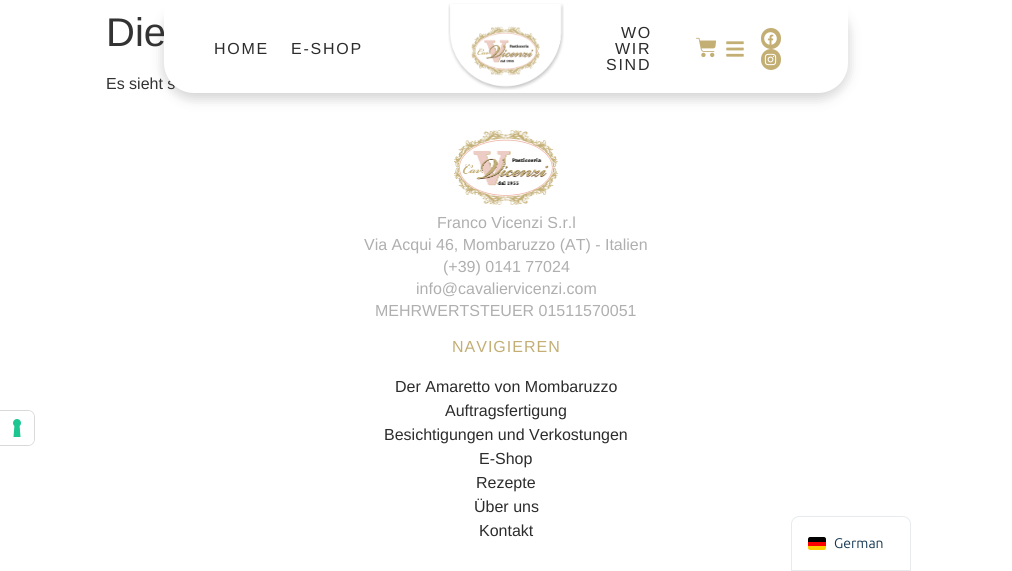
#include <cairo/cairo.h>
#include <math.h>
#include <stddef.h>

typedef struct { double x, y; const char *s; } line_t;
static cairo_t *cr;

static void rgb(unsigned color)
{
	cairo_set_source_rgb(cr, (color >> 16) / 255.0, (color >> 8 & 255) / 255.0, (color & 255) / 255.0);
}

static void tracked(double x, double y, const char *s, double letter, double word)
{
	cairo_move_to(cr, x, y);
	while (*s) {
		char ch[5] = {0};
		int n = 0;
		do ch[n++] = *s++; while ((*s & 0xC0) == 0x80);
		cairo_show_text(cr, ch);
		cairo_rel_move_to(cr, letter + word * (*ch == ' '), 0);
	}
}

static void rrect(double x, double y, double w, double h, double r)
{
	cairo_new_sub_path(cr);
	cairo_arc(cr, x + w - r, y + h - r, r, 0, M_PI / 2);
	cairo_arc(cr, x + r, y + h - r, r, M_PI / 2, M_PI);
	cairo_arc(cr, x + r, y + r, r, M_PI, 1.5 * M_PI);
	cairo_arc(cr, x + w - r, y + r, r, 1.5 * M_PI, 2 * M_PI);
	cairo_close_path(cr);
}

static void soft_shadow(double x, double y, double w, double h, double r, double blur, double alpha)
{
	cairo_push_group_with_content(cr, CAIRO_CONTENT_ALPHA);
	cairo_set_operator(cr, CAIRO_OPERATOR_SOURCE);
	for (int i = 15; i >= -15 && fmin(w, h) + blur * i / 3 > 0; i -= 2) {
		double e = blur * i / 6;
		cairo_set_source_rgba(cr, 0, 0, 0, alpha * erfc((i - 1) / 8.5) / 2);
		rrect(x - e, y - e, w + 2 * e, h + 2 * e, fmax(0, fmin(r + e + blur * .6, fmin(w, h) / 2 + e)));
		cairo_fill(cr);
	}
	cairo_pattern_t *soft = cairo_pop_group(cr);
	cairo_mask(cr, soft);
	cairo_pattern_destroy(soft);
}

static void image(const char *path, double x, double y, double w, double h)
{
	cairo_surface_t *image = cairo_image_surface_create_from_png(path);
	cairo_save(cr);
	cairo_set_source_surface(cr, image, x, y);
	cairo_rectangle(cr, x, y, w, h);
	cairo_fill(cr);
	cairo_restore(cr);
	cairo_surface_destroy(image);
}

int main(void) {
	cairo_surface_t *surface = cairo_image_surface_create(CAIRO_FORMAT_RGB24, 1012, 571);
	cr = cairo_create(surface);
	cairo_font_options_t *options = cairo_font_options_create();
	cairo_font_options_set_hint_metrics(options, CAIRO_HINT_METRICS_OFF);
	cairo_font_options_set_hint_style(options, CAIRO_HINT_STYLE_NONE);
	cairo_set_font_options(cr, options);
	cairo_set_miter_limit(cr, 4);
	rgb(0xffffff);
	cairo_paint(cr);
	rgb(0x000000);
	soft_shadow(163, 4, 686, 95, 31, 6, 0.17);
	cairo_new_path(cr);
	cairo_move_to(cr, -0.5, 410.5);
	cairo_line_to(cr, 28, 410.5);
	cairo_curve_to(cr, 31.5, 410.5, 34.5, 413.5, 34.5, 417);
	cairo_line_to(cr, 34.5, 439);
	cairo_curve_to(cr, 34.5, 442.5, 31.5, 445.5, 28, 445.5);
	cairo_line_to(cr, -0.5, 445.5);
	cairo_close_path(cr);
	rgb(0xd9d9d9);
	cairo_set_line_width(cr, 1);
	cairo_stroke(cr);
	rgb(0xffffff);
	cairo_new_path(cr);
	cairo_move_to(cr, 0, 411);
	cairo_line_to(cr, 28, 411);
	cairo_curve_to(cr, 31.5, 411, 34, 413.5, 34, 417);
	cairo_line_to(cr, 34, 439);
	cairo_curve_to(cr, 34, 442.5, 31.5, 445, 28, 445);
	cairo_line_to(cr, 0, 445);
	cairo_close_path(cr);
	cairo_fill(cr);
	image("img/6.png", 13, 419, 8, 18);
	image("img/7.png", 454, 130, 104, 75);
	cairo_new_path(cr);
	cairo_move_to(cr, 799, 516.5);
	cairo_line_to(cr, 903, 516.5);
	cairo_curve_to(cr, 907, 516.5, 910.5, 520, 910.5, 524);
	cairo_line_to(cr, 910.5, 570.5);
	cairo_line_to(cr, 791.5, 570.5);
	cairo_line_to(cr, 791.5, 524);
	cairo_curve_to(cr, 791.5, 520, 795, 516.5, 799, 516.5);
	cairo_close_path(cr);
	rgb(0xe7ebee);
	cairo_stroke(cr);
	rgb(0xffcc00);
	cairo_new_path(cr);
	cairo_move_to(cr, 808, 546);
	cairo_line_to(cr, 826, 546);
	cairo_line_to(cr, 826, 548);
	cairo_curve_to(cr, 826, 549, 825, 550, 824, 550);
	cairo_line_to(cr, 810, 550);
	cairo_curve_to(cr, 809, 550, 808, 549, 808, 548);
	cairo_close_path(cr);
	cairo_fill(cr);
	rgb(0x000001);
	cairo_new_path(cr);
	cairo_move_to(cr, 810, 537);
	cairo_line_to(cr, 824, 537);
	cairo_curve_to(cr, 825, 537, 826, 538, 826, 539);
	cairo_line_to(cr, 826, 542);
	cairo_line_to(cr, 808, 542);
	cairo_line_to(cr, 808, 539);
	cairo_curve_to(cr, 808, 538, 809, 537, 810, 537);
	cairo_close_path(cr);
	cairo_fill(cr);
	rgb(0xff0000);
	cairo_rectangle(cr, 808, 542, 18, 4);
	cairo_fill(cr);
	cairo_select_font_face(cr, "Liberation Sans", CAIRO_FONT_SLANT_NORMAL, CAIRO_FONT_WEIGHT_NORMAL);
	cairo_set_font_size(cr, 40);
	rgb(0x333333);
	cairo_move_to(cr, 106, 46);
	cairo_show_text(cr, "Die");
	cairo_set_font_size(cr, 16);
	cairo_move_to(cr, 106, 89);
	cairo_show_text(cr, "Es sieht s");
	rgb(0xffffff);
	cairo_new_path(cr);
	cairo_move_to(cr, 164, 0);
	cairo_line_to(cr, 848, 0);
	cairo_line_to(cr, 848, 63);
	cairo_curve_to(cr, 848, 79.5, 834.5, 93, 818, 93);
	cairo_line_to(cr, 194, 93);
	cairo_curve_to(cr, 177.5, 93, 164, 79.5, 164, 63);
	cairo_close_path(cr);
	cairo_fill(cr);
	image("img/1.png", 448, 3, 116, 87);
	rgb(0x2c2c2c);
	{
		static const line_t items[] = {
			{214, 54, "HOME"},
			{291, 54, "E-SHOP"},
			{621, 38, "WO"},
			{615, 54, "WIR"},
			{606, 70, "SIND"},
		};
		for (size_t i = 0; i < sizeof items / sizeof *items; i++) {
			tracked(items[i].x, items[i].y, items[i].s, 1.75, 0);
		}
	}
	image("img/2.png", 696, 37, 21, 21);
	image("img/3.png", 726, 41, 18, 16);
	rgb(0xc3ae74);
	rrect(761, 28, 20, 21, 10);
	cairo_fill(cr);
	image("img/4.png", 764, 32, 13, 13);
	rrect(761, 49, 20, 21, 10);
	cairo_fill(cr);
	image("img/5.png", 764, 53, 13, 13);
	rgb(0xafafaf);
	{
		static const line_t items[] = {
			{437, 228, "Franco Vicenzi S.r.l"},
			{364, 250, "Via Acqui 46, Mombaruzzo (AT) - Italien"},
			{443, 272, "(+39) 0141 77024"},
			{416, 294, "info@cavaliervicenzi.com"},
			{375, 316, "MEHRWERTSTEUER 01511570051"},
		};
		for (size_t i = 0; i < sizeof items / sizeof *items; i++) {
			cairo_move_to(cr, items[i].x, items[i].y);
			cairo_show_text(cr, items[i].s);
		}
	}
	rgb(0xc3ae74);
	tracked(452, 352, "NAVIGIEREN", 1, 0);
	rgb(0x2c2c2c);
	{
		static const line_t items[] = {
			{395, 392, "Der Amaretto von Mombaruzzo"},
			{445, 416, "Auftragsfertigung"},
			{384, 440, "Besichtigungen und Verkostungen"},
			{479, 464, "E-Shop"},
			{476, 488, "Rezepte"},
			{474, 512, "Über uns"},
			{479, 536, "Kontakt"},
		};
		for (size_t i = 0; i < sizeof items / sizeof *items; i++) {
			cairo_move_to(cr, items[i].x, items[i].y);
			cairo_show_text(cr, items[i].s);
		}
	}
	cairo_select_font_face(cr, "Ubuntu", CAIRO_FONT_SLANT_NORMAL, CAIRO_FONT_WEIGHT_NORMAL);
	cairo_set_font_size(cr, 14);
	rgb(0x143852);
	cairo_move_to(cr, 834, 548);
	cairo_show_text(cr, "German");
	cairo_surface_write_to_png(surface, "page.png");
	cairo_font_options_destroy(options);
	cairo_destroy(cr);
	cairo_surface_destroy(surface);
	return 0;
}
